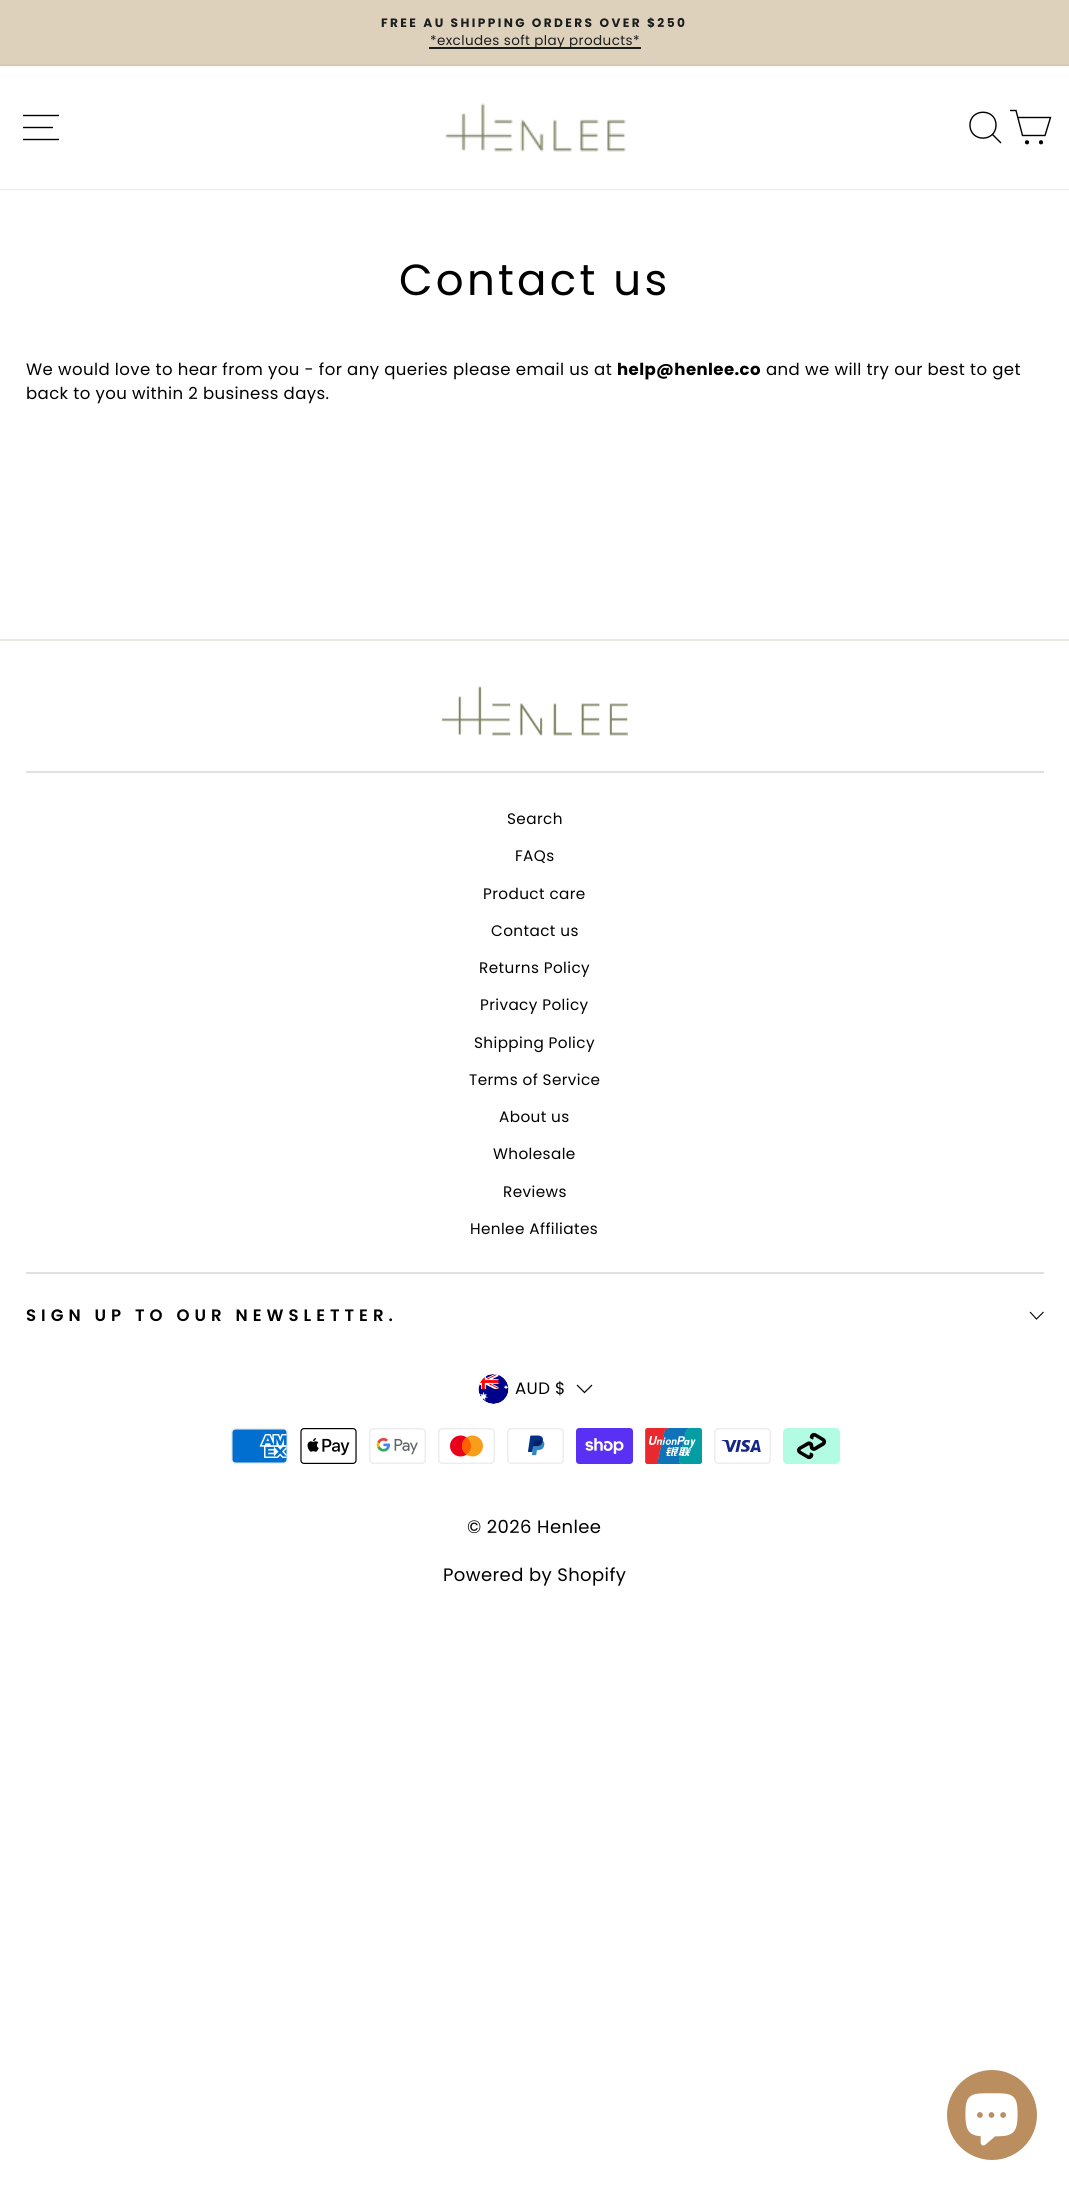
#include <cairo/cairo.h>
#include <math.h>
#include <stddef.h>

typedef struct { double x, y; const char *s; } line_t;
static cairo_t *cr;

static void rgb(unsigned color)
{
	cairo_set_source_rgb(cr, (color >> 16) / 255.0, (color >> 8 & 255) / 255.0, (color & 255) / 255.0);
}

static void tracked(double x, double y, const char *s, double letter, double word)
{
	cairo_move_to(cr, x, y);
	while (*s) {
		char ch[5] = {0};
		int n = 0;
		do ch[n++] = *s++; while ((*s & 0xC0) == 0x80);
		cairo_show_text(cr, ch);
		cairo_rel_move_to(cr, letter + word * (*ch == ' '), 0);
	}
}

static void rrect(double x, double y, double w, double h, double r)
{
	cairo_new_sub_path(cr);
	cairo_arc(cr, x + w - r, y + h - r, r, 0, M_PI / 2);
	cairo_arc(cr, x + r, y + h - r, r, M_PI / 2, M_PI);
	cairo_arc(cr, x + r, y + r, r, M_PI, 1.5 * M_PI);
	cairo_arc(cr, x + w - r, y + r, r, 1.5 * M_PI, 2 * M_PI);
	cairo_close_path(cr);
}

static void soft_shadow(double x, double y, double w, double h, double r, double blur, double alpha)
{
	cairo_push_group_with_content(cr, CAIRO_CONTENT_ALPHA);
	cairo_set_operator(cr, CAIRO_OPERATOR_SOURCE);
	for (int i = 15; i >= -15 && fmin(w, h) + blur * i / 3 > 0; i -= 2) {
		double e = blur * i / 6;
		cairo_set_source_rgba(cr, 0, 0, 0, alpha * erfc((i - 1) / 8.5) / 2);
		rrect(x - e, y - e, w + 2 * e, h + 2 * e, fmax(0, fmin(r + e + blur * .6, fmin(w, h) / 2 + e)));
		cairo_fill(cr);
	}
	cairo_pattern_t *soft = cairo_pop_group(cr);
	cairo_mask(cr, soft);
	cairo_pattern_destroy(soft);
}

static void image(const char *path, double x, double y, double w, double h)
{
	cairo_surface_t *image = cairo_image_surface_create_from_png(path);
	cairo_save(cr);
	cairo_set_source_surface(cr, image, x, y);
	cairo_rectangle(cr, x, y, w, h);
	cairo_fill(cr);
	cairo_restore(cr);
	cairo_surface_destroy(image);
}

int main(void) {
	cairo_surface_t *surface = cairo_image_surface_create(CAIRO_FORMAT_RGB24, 1069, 2191);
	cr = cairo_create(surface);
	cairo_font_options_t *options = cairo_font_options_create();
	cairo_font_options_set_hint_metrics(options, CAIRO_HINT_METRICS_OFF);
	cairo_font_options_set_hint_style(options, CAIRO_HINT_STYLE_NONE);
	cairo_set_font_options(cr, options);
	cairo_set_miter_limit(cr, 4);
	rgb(0xffffff);
	cairo_paint(cr);
	rgb(0xddd1bc);
	cairo_rectangle(cr, 0, 0, 1069, 66);
	cairo_fill(cr);
	rgb(0x1c1d1d);
	cairo_rectangle(cr, 429, 47, 212, 2);
	cairo_fill(cr);
	cairo_save(cr);
	cairo_set_fill_rule(cr, CAIRO_FILL_RULE_EVEN_ODD);
	cairo_new_path(cr);
	cairo_move_to(cr, 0, 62);
	cairo_line_to(cr, 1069, 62);
	cairo_line_to(cr, 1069, 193);
	cairo_line_to(cr, 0, 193);
	cairo_close_path(cr);
	cairo_move_to(cr, 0, 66);
	cairo_line_to(cr, 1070, 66);
	cairo_line_to(cr, 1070, 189);
	cairo_line_to(cr, 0, 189);
	cairo_close_path(cr);
	cairo_clip(cr);
	rgb(0x000000);
	soft_shadow(0, 66, 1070, 123, 0, 1, 0.2);
	cairo_restore(cr);
	cairo_new_path(cr);
	cairo_move_to(cr, 23, 115.5);
	cairo_line_to(cr, 59, 115.5);
	cairo_move_to(cr, 23, 127.5);
	cairo_line_to(cr, 53, 127.5);
	cairo_move_to(cr, 23, 139.5);
	cairo_line_to(cr, 59, 139.5);
	rgb(0x000000);
	cairo_set_line_width(cr, 1.4);
	cairo_stroke(cr);
	image("img/1.png", 445, 103, 181, 49);
	cairo_new_path(cr);
	cairo_move_to(cr, 996, 125);
	cairo_curve_to(cr, 996, 142.5, 970, 142.5, 970, 125);
	cairo_curve_to(cr, 970, 108, 996, 108, 996, 125);
	cairo_close_path(cr);
	cairo_move_to(cr, 1001, 143);
	cairo_line_to(cr, 992.5, 134.5);
	cairo_stroke(cr);
	cairo_new_path(cr);
	cairo_move_to(cr, 1018, 117.5);
	cairo_line_to(cr, 1050.5, 117.5);
	cairo_line_to(cr, 1045, 135.5);
	cairo_line_to(cr, 1022.5, 135.5);
	cairo_line_to(cr, 1016, 110.5);
	cairo_line_to(cr, 1010, 110.5);
	cairo_stroke(cr);
	cairo_arc(cr, 1027, 142.3, 1.4, 0, 2 * M_PI);
	cairo_fill_preserve(cr);
	cairo_stroke(cr);
	cairo_arc(cr, 1041, 142.3, 1.4, 0, 2 * M_PI);
	cairo_fill_preserve(cr);
	cairo_stroke(cr);
	rgb(0xe8e8e1);
	cairo_rectangle(cr, 0, 639, 1069, 2);
	cairo_fill(cr);
	image("img/2.png", 441, 686, 187, 50);
	rgb(0xe0e0e0);
	cairo_rectangle(cr, 26, 771, 1018, 2);
	cairo_fill(cr);
	cairo_rectangle(cr, 26, 1272, 1018, 2);
	cairo_fill(cr);
	cairo_new_path(cr);
	cairo_move_to(cr, 1030, 1312);
	cairo_line_to(cr, 1036.5, 1319);
	cairo_line_to(cr, 1043.5, 1312);
	rgb(0x000000);
	cairo_set_line_width(cr, 1.1);
	cairo_stroke(cr);
	image("img/3.png", 478, 1374, 31, 30);
	cairo_new_path(cr);
	cairo_move_to(cr, 577, 1385);
	cairo_line_to(cr, 584.5, 1392.5);
	cairo_line_to(cr, 592, 1385);
	cairo_set_line_width(cr, 1.2);
	cairo_stroke(cr);
	image("img/4.png", 231, 1428, 57, 36);
	image("img/5.png", 300, 1428, 57, 36);
	image("img/6.png", 369, 1428, 57, 36);
	image("img/7.png", 438, 1428, 57, 36);
	image("img/8.png", 507, 1428, 57, 36);
	image("img/9.png", 576, 1428, 57, 36);
	image("img/10.png", 645, 1428, 57, 36);
	image("img/11.png", 714, 1428, 57, 36);
	image("img/12.png", 783, 1428, 57, 36);
	rgb(0xba8e5e);
	cairo_arc(cr, 992, 2115, 45, 0, 2 * M_PI);
	cairo_fill(cr);
	image("img/13.png", 965, 2093, 53, 53);
	cairo_select_font_face(cr, "Poppins", CAIRO_FONT_SLANT_NORMAL, CAIRO_FONT_WEIGHT_BOLD);
	cairo_set_font_size(cr, 12.15);
	rgb(0x1c1d1d);
	tracked(381, 27, "FREE AU SHIPPING ORDERS OVER $250", 2.4, 0);
	cairo_select_font_face(cr, "Poppins", CAIRO_FONT_SLANT_NORMAL, CAIRO_FONT_WEIGHT_NORMAL);
	cairo_set_font_size(cr, 13.5);
	tracked(430, 45, "*excludes soft play products*", 0.4, 0);
	cairo_set_font_size(cr, 43.5);
	rgb(0x000000);
	tracked(399, 295, "Contact us", 3.25, 0);
	cairo_set_font_size(cr, 16.55);
	tracked(26, 375, "We would love to hear from you - for any queries please email us at", 0.4, 0);
	cairo_select_font_face(cr, "Poppins", CAIRO_FONT_SLANT_NORMAL, CAIRO_FONT_WEIGHT_BOLD);
	tracked(617, 375, "help@henlee.co", 0.4, 0);
	cairo_select_font_face(cr, "Poppins", CAIRO_FONT_SLANT_NORMAL, CAIRO_FONT_WEIGHT_NORMAL);
	tracked(766, 375, "and we will try our best to get", 0.4, 0);
	tracked(26, 399, "back to you within 2 business days.", 0.4, 0);
	cairo_set_font_size(cr, 15.25);
	{
		static const line_t items[] = {
			{507, 824, "Search"},
			{515, 861, "FAQs"},
			{483, 899, "Product care"},
			{491, 936, "Contact us"},
			{479, 973, "Returns Policy"},
			{480, 1010, "Privacy Policy"},
			{474, 1048, "Shipping Policy"},
			{469, 1085, "Terms of Service"},
			{499, 1122, "About us"},
			{493, 1159, "Wholesale"},
			{503, 1197, "Reviews"},
			{470, 1234, "Henlee Affiliates"},
		};
		for (size_t i = 0; i < sizeof items / sizeof *items; i++) {
			tracked(items[i].x, items[i].y, items[i].s, 0.4, 0);
		}
	}
	cairo_select_font_face(cr, "Poppins SemiBold", CAIRO_FONT_SLANT_NORMAL, CAIRO_FONT_WEIGHT_NORMAL);
	cairo_set_font_size(cr, 16.55);
	tracked(26, 1321, "SIGN UP TO OUR NEWSLETTER.", 5, 0);
	cairo_select_font_face(cr, "Poppins", CAIRO_FONT_SLANT_NORMAL, CAIRO_FONT_WEIGHT_NORMAL);
	tracked(515, 1394, "AUD $", 0.4, 0);
	cairo_set_font_size(cr, 18);
	tracked(467, 1533, "© 2026 Henlee", 0.4, 0);
	tracked(443, 1581, "Powered by Shopify", 0.4, 0);
	cairo_surface_write_to_png(surface, "page.png");
	cairo_font_options_destroy(options);
	cairo_destroy(cr);
	cairo_surface_destroy(surface);
	return 0;
}
